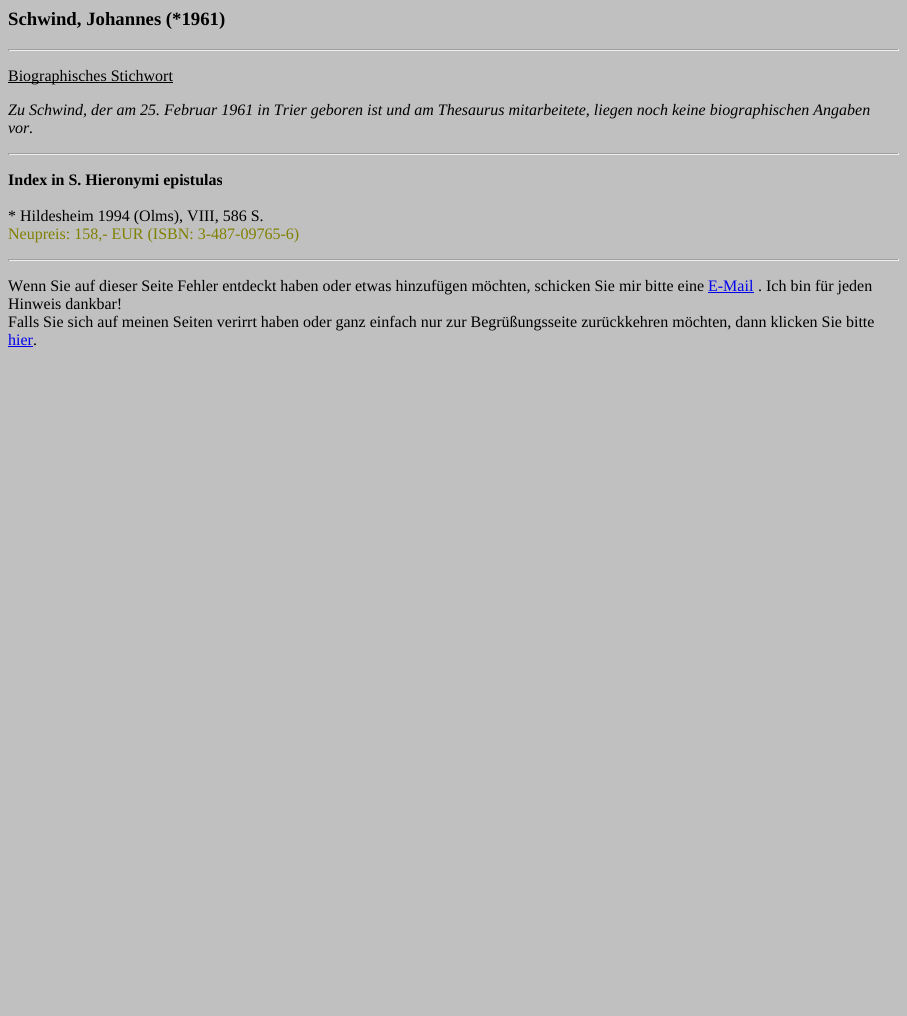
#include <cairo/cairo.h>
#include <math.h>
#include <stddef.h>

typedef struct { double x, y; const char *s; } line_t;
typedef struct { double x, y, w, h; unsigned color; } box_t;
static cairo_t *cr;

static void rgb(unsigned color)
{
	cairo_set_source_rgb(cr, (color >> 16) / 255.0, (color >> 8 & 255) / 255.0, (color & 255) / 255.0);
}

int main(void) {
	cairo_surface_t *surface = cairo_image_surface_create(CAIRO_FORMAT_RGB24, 907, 1016);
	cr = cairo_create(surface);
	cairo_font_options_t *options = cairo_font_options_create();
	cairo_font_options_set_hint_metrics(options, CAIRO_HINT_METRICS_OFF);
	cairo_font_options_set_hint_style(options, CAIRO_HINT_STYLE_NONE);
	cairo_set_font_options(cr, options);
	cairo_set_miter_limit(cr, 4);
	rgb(0xc0c0c0);
	cairo_paint(cr);
	{
		static const box_t items[] = {
			{8, 49, 891, 1, 0x9f9f9f},
			{898, 49, 1, 2, 0xeeeeee},
			{8, 50, 891, 1, 0xeeeeee},
			{8, 49, 1, 2, 0x9f9f9f},
			{8, 82, 165, 1, 0x000000},
			{8, 153, 891, 1, 0x9f9f9f},
			{898, 153, 1, 2, 0xeeeeee},
			{8, 154, 891, 1, 0xeeeeee},
			{8, 153, 1, 2, 0x9f9f9f},
			{8, 259, 891, 1, 0x9f9f9f},
			{898, 259, 1, 2, 0xeeeeee},
			{8, 260, 891, 1, 0xeeeeee},
			{8, 259, 1, 2, 0x9f9f9f},
			{708, 292, 46, 1, 0x0000ee},
			{8, 346, 25, 1, 0x0000ee},
		};
		for (size_t i = 0; i < sizeof items / sizeof *items; i++) {
			rgb(items[i].color);
			cairo_rectangle(cr, items[i].x, items[i].y, items[i].w, items[i].h);
			cairo_fill(cr);
		}
	}
	cairo_select_font_face(cr, "Liberation Serif", CAIRO_FONT_SLANT_NORMAL, CAIRO_FONT_WEIGHT_BOLD);
	cairo_set_font_size(cr, 18.75);
	rgb(0x000000);
	cairo_move_to(cr, 8, 25);
	cairo_show_text(cr, "Schwind, Johannes (*1961)");
	cairo_select_font_face(cr, "Liberation Serif", CAIRO_FONT_SLANT_NORMAL, CAIRO_FONT_WEIGHT_NORMAL);
	cairo_set_font_size(cr, 16);
	cairo_move_to(cr, 8, 81);
	cairo_show_text(cr, "Biographisches Stichwort");
	cairo_select_font_face(cr, "Liberation Serif", CAIRO_FONT_SLANT_ITALIC, CAIRO_FONT_WEIGHT_NORMAL);
	cairo_move_to(cr, 8, 115);
	cairo_show_text(cr, "Zu Schwind, der am 25. Februar 1961 in Trier geboren ist und am Thesaurus mitarbeitete, liegen noch keine biographischen Angaben");
	cairo_move_to(cr, 8, 133);
	cairo_show_text(cr, "vor.");
	cairo_select_font_face(cr, "Liberation Serif", CAIRO_FONT_SLANT_NORMAL, CAIRO_FONT_WEIGHT_BOLD);
	cairo_move_to(cr, 8, 185);
	cairo_show_text(cr, "Index in S. Hieronymi epistulas");
	cairo_select_font_face(cr, "Liberation Serif", CAIRO_FONT_SLANT_NORMAL, CAIRO_FONT_WEIGHT_NORMAL);
	cairo_move_to(cr, 8, 221);
	cairo_show_text(cr, "* Hildesheim 1994 (Olms), VIII, 586 S.");
	rgb(0x808000);
	cairo_move_to(cr, 8, 239);
	cairo_show_text(cr, "Neupreis: 158,- EUR (ISBN: 3-487-09765-6)");
	rgb(0x000000);
	cairo_move_to(cr, 8, 291);
	cairo_show_text(cr, "Wenn Sie auf dieser Seite Fehler entdeckt haben oder etwas hinzufügen möchten, schicken Sie mir bitte eine");
	rgb(0x0000ee);
	cairo_move_to(cr, 708, 291);
	cairo_show_text(cr, "E-Mail");
	rgb(0x000000);
	{
		static const line_t items[] = {
			{758, 291, ". Ich bin für jeden"},
			{8, 309, "Hinweis dankbar!"},
			{8, 327, "Falls Sie sich auf meinen Seiten verirrt haben oder ganz einfach nur zur Begrüßungsseite zurückkehren möchten, dann klicken Sie bitte"},
		};
		for (size_t i = 0; i < sizeof items / sizeof *items; i++) {
			cairo_move_to(cr, items[i].x, items[i].y);
			cairo_show_text(cr, items[i].s);
		}
	}
	rgb(0x0000ee);
	cairo_move_to(cr, 8, 345);
	cairo_show_text(cr, "hier");
	rgb(0x000000);
	cairo_move_to(cr, 33, 345);
	cairo_show_text(cr, ".");
	cairo_surface_write_to_png(surface, "page.png");
	cairo_font_options_destroy(options);
	cairo_destroy(cr);
	cairo_surface_destroy(surface);
	return 0;
}
